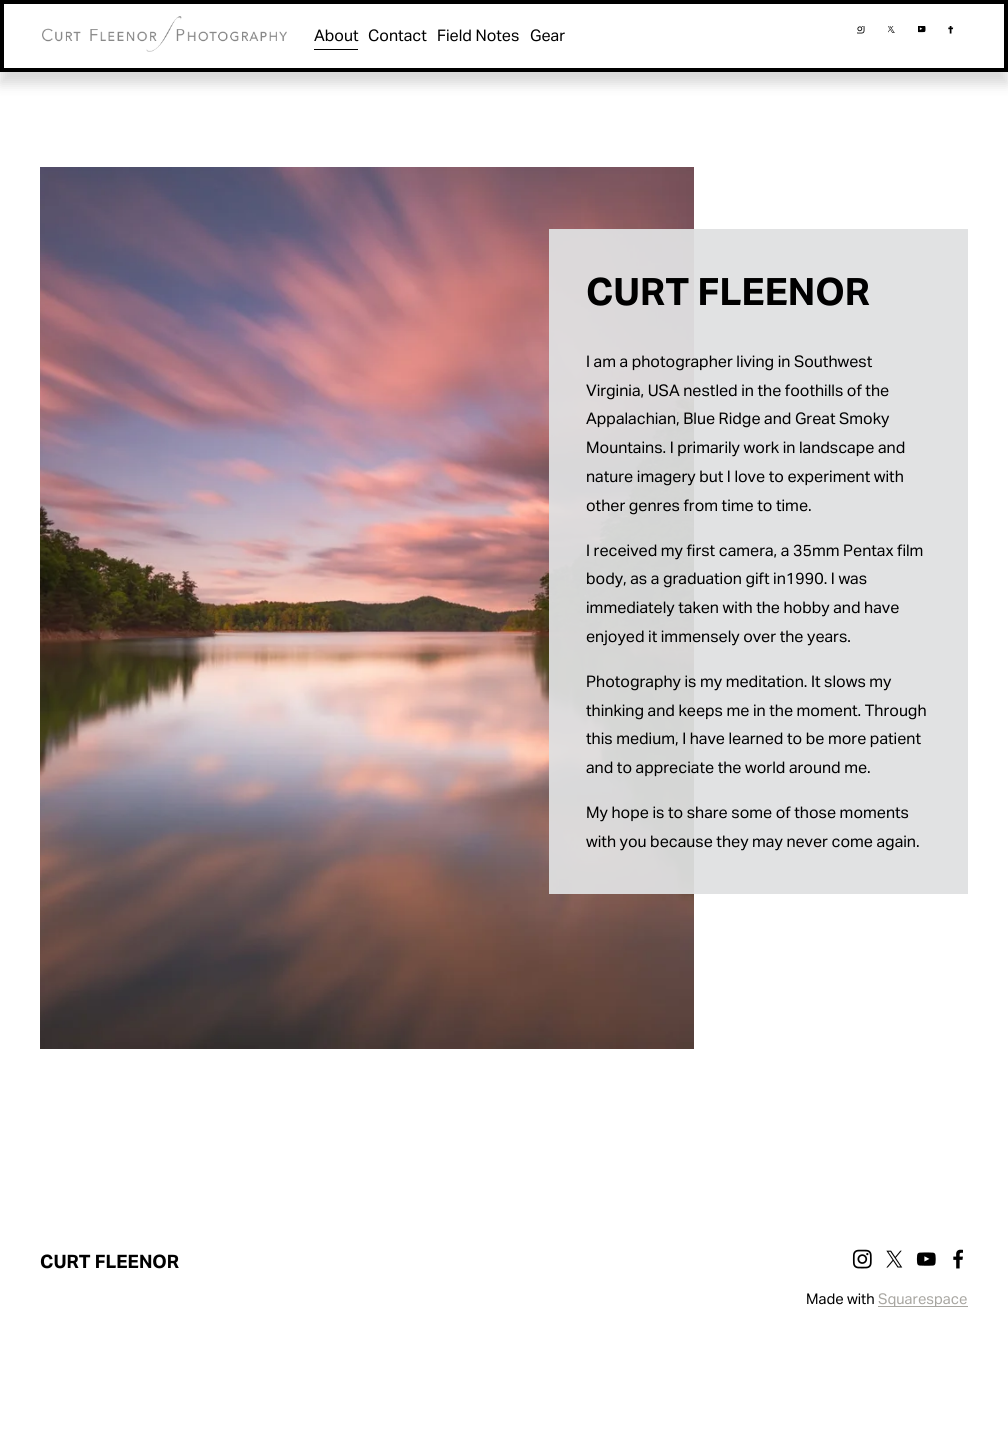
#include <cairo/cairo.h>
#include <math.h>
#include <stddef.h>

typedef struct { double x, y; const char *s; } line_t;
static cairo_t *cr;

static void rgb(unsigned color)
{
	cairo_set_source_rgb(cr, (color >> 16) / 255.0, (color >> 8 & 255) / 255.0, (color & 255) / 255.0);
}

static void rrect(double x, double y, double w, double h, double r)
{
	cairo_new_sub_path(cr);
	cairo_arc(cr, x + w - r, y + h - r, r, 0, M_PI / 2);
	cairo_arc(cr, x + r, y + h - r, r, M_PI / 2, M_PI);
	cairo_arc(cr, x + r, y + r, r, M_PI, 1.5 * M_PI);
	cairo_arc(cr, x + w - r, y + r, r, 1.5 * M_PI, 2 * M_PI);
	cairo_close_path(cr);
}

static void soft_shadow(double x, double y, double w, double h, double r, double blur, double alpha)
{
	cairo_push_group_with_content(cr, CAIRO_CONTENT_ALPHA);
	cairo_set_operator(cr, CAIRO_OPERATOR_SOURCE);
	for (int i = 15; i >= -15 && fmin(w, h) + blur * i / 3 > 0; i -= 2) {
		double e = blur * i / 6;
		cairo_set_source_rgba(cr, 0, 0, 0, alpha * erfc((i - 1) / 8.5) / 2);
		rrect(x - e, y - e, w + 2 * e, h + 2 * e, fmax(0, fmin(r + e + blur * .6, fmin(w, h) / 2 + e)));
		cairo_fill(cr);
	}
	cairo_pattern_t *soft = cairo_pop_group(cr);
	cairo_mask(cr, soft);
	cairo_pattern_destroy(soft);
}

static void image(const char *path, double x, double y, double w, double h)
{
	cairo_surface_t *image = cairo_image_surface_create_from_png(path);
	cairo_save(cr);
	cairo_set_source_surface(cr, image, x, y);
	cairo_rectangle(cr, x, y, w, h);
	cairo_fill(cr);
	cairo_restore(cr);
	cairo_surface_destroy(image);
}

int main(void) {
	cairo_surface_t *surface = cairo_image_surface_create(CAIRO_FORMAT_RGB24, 1008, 1440);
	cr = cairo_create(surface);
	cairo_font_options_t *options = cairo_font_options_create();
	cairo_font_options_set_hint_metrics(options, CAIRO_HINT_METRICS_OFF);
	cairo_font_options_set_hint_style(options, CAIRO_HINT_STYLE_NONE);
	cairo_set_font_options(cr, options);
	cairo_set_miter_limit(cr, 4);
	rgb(0xffffff);
	cairo_paint(cr);
	cairo_save(cr);
	cairo_rectangle(cr, 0, 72, 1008, 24);
	cairo_clip(cr);
	rgb(0xd9d9d9);
	soft_shadow(0, 12, 1008, 72, 0, 6, 1);
	cairo_restore(cr);
	cairo_rectangle(cr, 2, 2, 1004, 68);
	rgb(0x000000);
	cairo_set_line_width(cr, 4);
	cairo_stroke(cr);
	image("img/1.png", 42, 16, 245, 36);
	cairo_rectangle(cr, 314, 49, 44, 1);
	cairo_fill(cr);
	image("img/2.png", 857, 26, 8, 8);
	image("img/3.png", 888, 26, 7, 7);
	image("img/4.png", 918, 26, 8, 7);
	image("img/5.png", 948, 26, 6, 8);
	image("img/6.png", 40, 167, 654, 882);
	cairo_set_source_rgba(cr, 0.875, 0.878, 0.882, 0.94);
	cairo_rectangle(cr, 549, 229, 419, 665);
	cairo_fill(cr);
	image("img/7.png", 852, 1249, 20, 20);
	image("img/8.png", 886, 1250, 17, 18);
	image("img/9.png", 916, 1252, 20, 14);
	image("img/10.png", 953, 1249, 10, 20);
	rgb(0xa8a6a1);
	cairo_rectangle(cr, 878, 1306, 90, 1);
	cairo_fill(cr);
	cairo_select_font_face(cr, "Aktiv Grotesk", CAIRO_FONT_SLANT_NORMAL, CAIRO_FONT_WEIGHT_NORMAL);
	cairo_set_font_size(cr, 16);
	rgb(0x000000);
	{
		static const line_t items[] = {
			{314, 41, "About"},
			{368, 41, "Contact"},
			{437, 41, "Field Notes"},
			{530, 41, "Gear"},
		};
		for (size_t i = 0; i < sizeof items / sizeof *items; i++) {
			cairo_move_to(cr, items[i].x, items[i].y);
			cairo_show_text(cr, items[i].s);
		}
	}
	cairo_select_font_face(cr, "Aktiv Grotesk", CAIRO_FONT_SLANT_NORMAL, CAIRO_FONT_WEIGHT_BOLD);
	cairo_set_font_size(cr, 37.75);
	cairo_move_to(cr, 586, 305);
	cairo_show_text(cr, "CURT FLEENOR");
	cairo_select_font_face(cr, "Aktiv Grotesk", CAIRO_FONT_SLANT_NORMAL, CAIRO_FONT_WEIGHT_NORMAL);
	cairo_set_font_size(cr, 16);
	{
		static const line_t items[] = {
			{586, 367, "I am a photographer living in Southwest"},
			{586, 396, "Virginia, USA nestled in the foothills of the"},
			{586, 424, "Appalachian, Blue Ridge and Great Smoky"},
			{586, 453, "Mountains. I primarily work in landscape and"},
			{586, 482, "nature imagery but I love to experiment with"},
			{586, 511, "other genres from time to time."},
			{586, 556, "I received my first camera, a 35mm Pentax film"},
			{586, 584, "body, as a graduation gift in1990. I was"},
			{586, 613, "immediately taken with the hobby and have"},
			{586, 642, "enjoyed it immensely over the years."},
			{586, 687, "Photography is my meditation. It slows my"},
			{586, 716, "thinking and keeps me in the moment. Through"},
			{586, 744, "this medium, I have learned to be more patient"},
			{586, 773, "and to appreciate the world around me."},
			{586, 818, "My hope is to share some of those moments"},
			{586, 847, "with you because they may never come again."},
		};
		for (size_t i = 0; i < sizeof items / sizeof *items; i++) {
			cairo_move_to(cr, items[i].x, items[i].y);
			cairo_show_text(cr, items[i].s);
		}
	}
	cairo_select_font_face(cr, "Aktiv Grotesk", CAIRO_FONT_SLANT_NORMAL, CAIRO_FONT_WEIGHT_BOLD);
	cairo_set_font_size(cr, 18.5);
	cairo_move_to(cr, 40, 1268);
	cairo_show_text(cr, "CURT FLEENOR");
	cairo_select_font_face(cr, "Aktiv Grotesk", CAIRO_FONT_SLANT_NORMAL, CAIRO_FONT_WEIGHT_NORMAL);
	cairo_set_font_size(cr, 14.75);
	cairo_move_to(cr, 806, 1304);
	cairo_show_text(cr, "Made with");
	rgb(0xa8a6a1);
	cairo_move_to(cr, 878, 1304);
	cairo_show_text(cr, "Squarespace");
	cairo_surface_write_to_png(surface, "page.png");
	cairo_font_options_destroy(options);
	cairo_destroy(cr);
	cairo_surface_destroy(surface);
	return 0;
}
